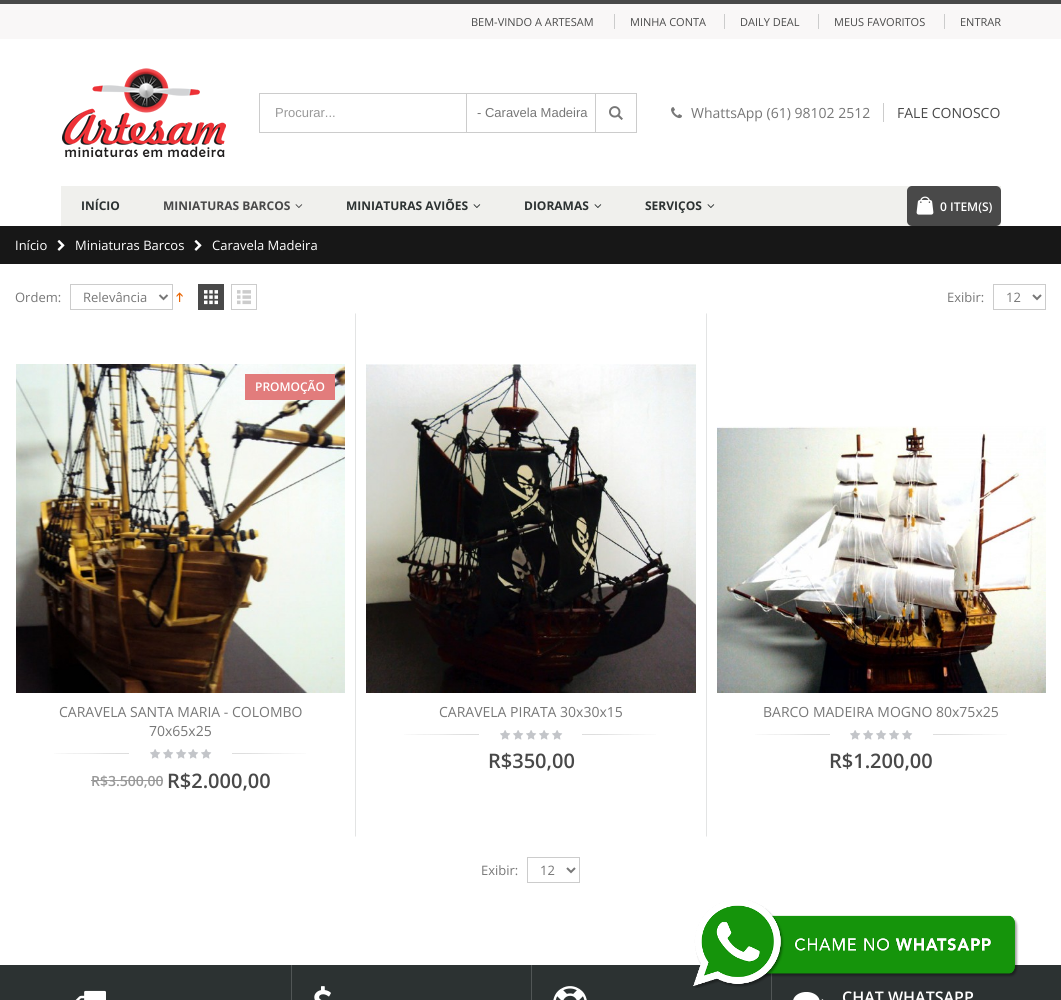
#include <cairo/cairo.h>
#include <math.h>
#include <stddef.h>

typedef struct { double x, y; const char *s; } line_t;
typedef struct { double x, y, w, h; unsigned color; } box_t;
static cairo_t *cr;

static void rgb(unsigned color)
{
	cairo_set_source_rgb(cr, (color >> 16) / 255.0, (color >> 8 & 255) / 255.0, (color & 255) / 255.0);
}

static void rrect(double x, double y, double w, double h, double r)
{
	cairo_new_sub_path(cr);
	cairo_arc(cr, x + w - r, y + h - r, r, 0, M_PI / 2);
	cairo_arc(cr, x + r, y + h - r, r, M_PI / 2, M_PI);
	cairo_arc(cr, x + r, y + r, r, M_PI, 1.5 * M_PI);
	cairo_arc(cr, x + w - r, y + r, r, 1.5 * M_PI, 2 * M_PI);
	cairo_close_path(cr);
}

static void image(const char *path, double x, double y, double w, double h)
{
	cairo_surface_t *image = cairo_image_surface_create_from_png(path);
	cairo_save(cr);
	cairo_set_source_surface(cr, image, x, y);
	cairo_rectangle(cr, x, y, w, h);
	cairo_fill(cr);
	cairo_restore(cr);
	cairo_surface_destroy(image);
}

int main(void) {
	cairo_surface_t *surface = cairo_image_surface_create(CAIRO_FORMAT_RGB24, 1061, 1000);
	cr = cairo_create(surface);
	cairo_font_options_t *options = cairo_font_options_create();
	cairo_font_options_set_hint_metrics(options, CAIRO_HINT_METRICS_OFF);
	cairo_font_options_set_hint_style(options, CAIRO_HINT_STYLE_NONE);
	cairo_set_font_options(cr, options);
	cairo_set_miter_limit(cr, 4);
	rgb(0xffffff);
	cairo_paint(cr);
	{
		static const box_t items[] = {
			{0, 0, 1061, 4, 0x494949},
			{0, 4, 1061, 35, 0xf9f7f7},
			{614, 14, 1, 15, 0xcccccc},
			{724, 14, 1, 15, 0xcccccc},
			{818, 14, 1, 15, 0xcccccc},
			{944, 14, 1, 15, 0xcccccc},
		};
		for (size_t i = 0; i < sizeof items / sizeof *items; i++) {
			rgb(items[i].color);
			cairo_rectangle(cr, items[i].x, items[i].y, items[i].w, items[i].h);
			cairo_fill(cr);
		}
	}
	image("img/1.png", 62, 68, 164, 89);
	cairo_rectangle(cr, 259.5, 93.5, 377, 39);
	cairo_set_line_width(cr, 1);
	cairo_stroke(cr);
	cairo_rectangle(cr, 595, 94, 1, 38);
	cairo_fill(cr);
	cairo_rectangle(cr, 466, 94, 1, 38);
	cairo_fill(cr);
	image("img/2.png", 609, 106, 14, 14);
	image("img/3.png", 671, 107, 11, 12);
	cairo_rectangle(cr, 883, 103, 1, 19);
	cairo_fill(cr);
	rgb(0xf0f0ed);
	cairo_rectangle(cr, 61, 186, 940, 40);
	cairo_fill(cr);
	rgb(0x494949);
	rrect(907, 186, 94, 40, 5);
	cairo_fill(cr);
	image("img/4.png", 916, 196, 18, 19);
	image("img/5.png", 295, 204, 8, 4);
	image("img/6.png", 473, 204, 8, 4);
	image("img/6.png", 594, 204, 8, 4);
	image("img/6.png", 707, 204, 8, 4);
	rgb(0x171717);
	cairo_rectangle(cr, 0, 226, 1061, 38);
	cairo_fill(cr);
	image("img/7.png", 57, 240, 8, 11);
	image("img/7.png", 194, 240, 8, 11);
	cairo_rectangle(cr, 70.5, 284.5, 102, 25);
	rgb(0xcccccc);
	cairo_stroke(cr);
	cairo_new_path(cr);
	cairo_move_to(cr, 159.5, 295);
	cairo_line_to(cr, 163.5, 299);
	cairo_line_to(cr, 167.5, 295);
	rgb(0x777777);
	cairo_set_line_width(cr, 2);
	cairo_stroke(cr);
	image("img/8.png", 176, 292, 7, 10);
	rgb(0x494949);
	cairo_rectangle(cr, 198, 284, 26, 26);
	cairo_fill(cr);
	image("img/9.png", 204, 290, 14, 15);
	cairo_rectangle(cr, 231.5, 284.5, 25, 25);
	rgb(0xcccccc);
	cairo_set_line_width(cr, 1);
	cairo_stroke(cr);
	image("img/10.png", 237, 290, 14, 15);
	cairo_rectangle(cr, 993.5, 284.5, 52, 25);
	cairo_stroke(cr);
	cairo_new_path(cr);
	cairo_move_to(cr, 1033, 295);
	cairo_line_to(cr, 1037, 299);
	cairo_line_to(cr, 1041, 295);
	rgb(0x777777);
	cairo_set_line_width(cr, 2);
	cairo_stroke(cr);
	image("img/11.png", 16, 364, 329, 329);
	rgb(0xe27c7c);
	cairo_rectangle(cr, 245, 374, 90, 26);
	cairo_fill(cr);
	image("img/12.png", 54, 753, 252, 1);
	image("img/13.png", 150, 749, 11, 10);
	image("img/13.png", 163, 749, 11, 10);
	image("img/13.png", 176, 749, 11, 10);
	image("img/13.png", 188, 749, 11, 10);
	image("img/13.png", 201, 749, 11, 10);
	rgb(0x999999);
	cairo_rectangle(cr, 91, 780, 72, 1);
	cairo_fill(cr);
	rgb(0xe3e4e4);
	cairo_new_path(cr);
	cairo_move_to(cr, 355, 837);
	cairo_line_to(cr, 355, 313);
	cairo_line_to(cr, 356, 314);
	cairo_line_to(cr, 356, 836);
	cairo_close_path(cr);
	cairo_fill(cr);
	image("img/14.png", 366, 364, 330, 329);
	image("img/12.png", 404, 734, 252, 1);
	image("img/13.png", 500, 730, 11, 10);
	image("img/13.png", 513, 730, 11, 10);
	image("img/13.png", 526, 730, 11, 10);
	image("img/13.png", 539, 730, 11, 10);
	image("img/13.png", 552, 730, 11, 10);
	cairo_new_path(cr);
	cairo_move_to(cr, 706, 837);
	cairo_line_to(cr, 706, 313);
	cairo_line_to(cr, 707, 314);
	cairo_line_to(cr, 707, 836);
	cairo_close_path(cr);
	cairo_fill(cr);
	image("img/15.png", 717, 426, 329, 267);
	image("img/12.png", 755, 734, 252, 1);
	image("img/13.png", 850, 730, 11, 10);
	image("img/13.png", 863, 730, 11, 10);
	image("img/13.png", 876, 730, 11, 10);
	image("img/13.png", 889, 730, 11, 10);
	image("img/13.png", 902, 730, 11, 10);
	cairo_rectangle(cr, 527.5, 857.5, 52, 25);
	rgb(0xcccccc);
	cairo_set_line_width(cr, 1);
	cairo_stroke(cr);
	cairo_new_path(cr);
	cairo_move_to(cr, 567, 868);
	cairo_line_to(cr, 571, 872);
	cairo_line_to(cr, 575, 868);
	rgb(0x777777);
	cairo_set_line_width(cr, 2);
	cairo_stroke(cr);
	rgb(0x2c3232);
	cairo_rectangle(cr, 0, 965, 1061, 35);
	cairo_fill(cr);
	rgb(0x515656);
	cairo_rectangle(cr, 771, 965, 1, 35);
	cairo_fill(cr);
	image("img/16.png", 693, 900, 326, 88);
	image("img/17.png", 75, 990, 31, 10);
	cairo_rectangle(cr, 291, 965, 1, 35);
	cairo_fill(cr);
	image("img/18.png", 314, 986, 17, 14);
	cairo_rectangle(cr, 531, 965, 1, 35);
	cairo_fill(cr);
	image("img/19.png", 553, 986, 34, 14);
	image("img/20.png", 793, 992, 31, 8);
	cairo_select_font_face(cr, "Open Sans", CAIRO_FONT_SLANT_NORMAL, CAIRO_FONT_WEIGHT_NORMAL);
	cairo_set_font_size(cr, 11);
	rgb(0x494949);
	{
		static const line_t items[] = {
			{471, 26, "BEM-VINDO A ARTESAM"},
			{630, 26, "MINHA CONTA"},
			{740, 26, "DAILY DEAL"},
			{834, 26, "MEUS FAVORITOS"},
			{960, 26, "ENTRAR"},
		};
		for (size_t i = 0; i < sizeof items / sizeof *items; i++) {
			cairo_move_to(cr, items[i].x, items[i].y);
			cairo_show_text(cr, items[i].s);
		}
	}
	cairo_select_font_face(cr, "Liberation Sans", CAIRO_FONT_SLANT_NORMAL, CAIRO_FONT_WEIGHT_NORMAL);
	cairo_set_font_size(cr, 13);
	rgb(0x999999);
	cairo_move_to(cr, 275, 117);
	cairo_show_text(cr, "Procurar...");
	rgb(0x777777);
	cairo_move_to(cr, 477, 117);
	cairo_show_text(cr, "- Caravela Madeira");
	cairo_select_font_face(cr, "Open Sans", CAIRO_FONT_SLANT_NORMAL, CAIRO_FONT_WEIGHT_NORMAL);
	cairo_set_font_size(cr, 14);
	cairo_move_to(cr, 691, 118);
	cairo_show_text(cr, "WhattsApp (61) 98102 2512");
	rgb(0x494949);
	cairo_move_to(cr, 897, 118);
	cairo_show_text(cr, "FALE CONOSCO");
	cairo_select_font_face(cr, "Open Sans SemiBold", CAIRO_FONT_SLANT_NORMAL, CAIRO_FONT_WEIGHT_NORMAL);
	cairo_set_font_size(cr, 12);
	rgb(0xffffff);
	cairo_move_to(cr, 940, 211);
	cairo_show_text(cr, "0 ITEM(S)");
	cairo_select_font_face(cr, "Open Sans", CAIRO_FONT_SLANT_NORMAL, CAIRO_FONT_WEIGHT_BOLD);
	rgb(0x2c3232);
	cairo_move_to(cr, 81, 210);
	cairo_show_text(cr, "INÍCIO");
	rgb(0x494949);
	cairo_move_to(cr, 163, 210);
	cairo_show_text(cr, "MINIATURAS BARCOS");
	rgb(0x2c3232);
	{
		static const line_t items[] = {
			{346, 210, "MINIATURAS AVIÕES"},
			{524, 210, "DIORAMAS"},
			{645, 210, "SERVIÇOS"},
		};
		for (size_t i = 0; i < sizeof items / sizeof *items; i++) {
			cairo_move_to(cr, items[i].x, items[i].y);
			cairo_show_text(cr, items[i].s);
		}
	}
	cairo_select_font_face(cr, "Open Sans", CAIRO_FONT_SLANT_NORMAL, CAIRO_FONT_WEIGHT_NORMAL);
	cairo_set_font_size(cr, 13);
	rgb(0xffffff);
	{
		static const line_t items[] = {
			{15, 250, "Início"},
			{75, 250, "Miniaturas Barcos"},
			{212, 250, "Caravela Madeira"},
		};
		for (size_t i = 0; i < sizeof items / sizeof *items; i++) {
			cairo_move_to(cr, items[i].x, items[i].y);
			cairo_show_text(cr, items[i].s);
		}
	}
	rgb(0x777777);
	{
		static const line_t items[] = {
			{15, 302, "Ordem:"},
			{83, 302, "Relevância"},
			{947, 302, "Exibir:"},
			{1006, 302, "12"},
		};
		for (size_t i = 0; i < sizeof items / sizeof *items; i++) {
			cairo_move_to(cr, items[i].x, items[i].y);
			cairo_show_text(cr, items[i].s);
		}
	}
	cairo_select_font_face(cr, "Open Sans SemiBold", CAIRO_FONT_SLANT_NORMAL, CAIRO_FONT_WEIGHT_NORMAL);
	cairo_set_font_size(cr, 12);
	rgb(0xffffff);
	cairo_move_to(cr, 255, 391);
	cairo_show_text(cr, "PROMOÇÃO");
	cairo_select_font_face(cr, "Open Sans", CAIRO_FONT_SLANT_NORMAL, CAIRO_FONT_WEIGHT_NORMAL);
	cairo_set_font_size(cr, 14);
	rgb(0x777777);
	cairo_move_to(cr, 59, 717);
	cairo_show_text(cr, "CARAVELA SANTA MARIA - COLOMBO");
	cairo_move_to(cr, 149, 736);
	cairo_show_text(cr, "70x65x25");
	cairo_select_font_face(cr, "Open Sans SemiBold", CAIRO_FONT_SLANT_NORMAL, CAIRO_FONT_WEIGHT_NORMAL);
	rgb(0x999999);
	cairo_move_to(cr, 91, 786);
	cairo_show_text(cr, "R$3.500,00");
	cairo_set_font_size(cr, 20);
	rgb(0x494949);
	cairo_move_to(cr, 167, 788);
	cairo_show_text(cr, "R$2.000,00");
	cairo_select_font_face(cr, "Open Sans", CAIRO_FONT_SLANT_NORMAL, CAIRO_FONT_WEIGHT_NORMAL);
	cairo_set_font_size(cr, 14);
	rgb(0x777777);
	cairo_move_to(cr, 439, 717);
	cairo_show_text(cr, "CARAVELA PIRATA 30x30x15");
	cairo_select_font_face(cr, "Open Sans SemiBold", CAIRO_FONT_SLANT_NORMAL, CAIRO_FONT_WEIGHT_NORMAL);
	cairo_set_font_size(cr, 20);
	rgb(0x494949);
	cairo_move_to(cr, 488, 768);
	cairo_show_text(cr, "R$350,00");
	cairo_select_font_face(cr, "Open Sans", CAIRO_FONT_SLANT_NORMAL, CAIRO_FONT_WEIGHT_NORMAL);
	cairo_set_font_size(cr, 14);
	rgb(0x777777);
	cairo_move_to(cr, 763, 717);
	cairo_show_text(cr, "BARCO MADEIRA MOGNO 80x75x25");
	cairo_select_font_face(cr, "Open Sans SemiBold", CAIRO_FONT_SLANT_NORMAL, CAIRO_FONT_WEIGHT_NORMAL);
	cairo_set_font_size(cr, 20);
	rgb(0x494949);
	cairo_move_to(cr, 829, 768);
	cairo_show_text(cr, "R$1.200,00");
	cairo_select_font_face(cr, "Open Sans", CAIRO_FONT_SLANT_NORMAL, CAIRO_FONT_WEIGHT_NORMAL);
	cairo_set_font_size(cr, 13);
	rgb(0x777777);
	cairo_move_to(cr, 481, 875);
	cairo_show_text(cr, "Exibir:");
	cairo_move_to(cr, 540, 875);
	cairo_show_text(cr, "12");
	cairo_select_font_face(cr, "Open Sans SemiBold", CAIRO_FONT_SLANT_NORMAL, CAIRO_FONT_WEIGHT_NORMAL);
	cairo_set_font_size(cr, 16);
	rgb(0xffffff);
	cairo_move_to(cr, 842, 1003);
	cairo_show_text(cr, "CHAT WHATSAPP");
	cairo_surface_write_to_png(surface, "page.png");
	cairo_font_options_destroy(options);
	cairo_destroy(cr);
	cairo_surface_destroy(surface);
	return 0;
}
